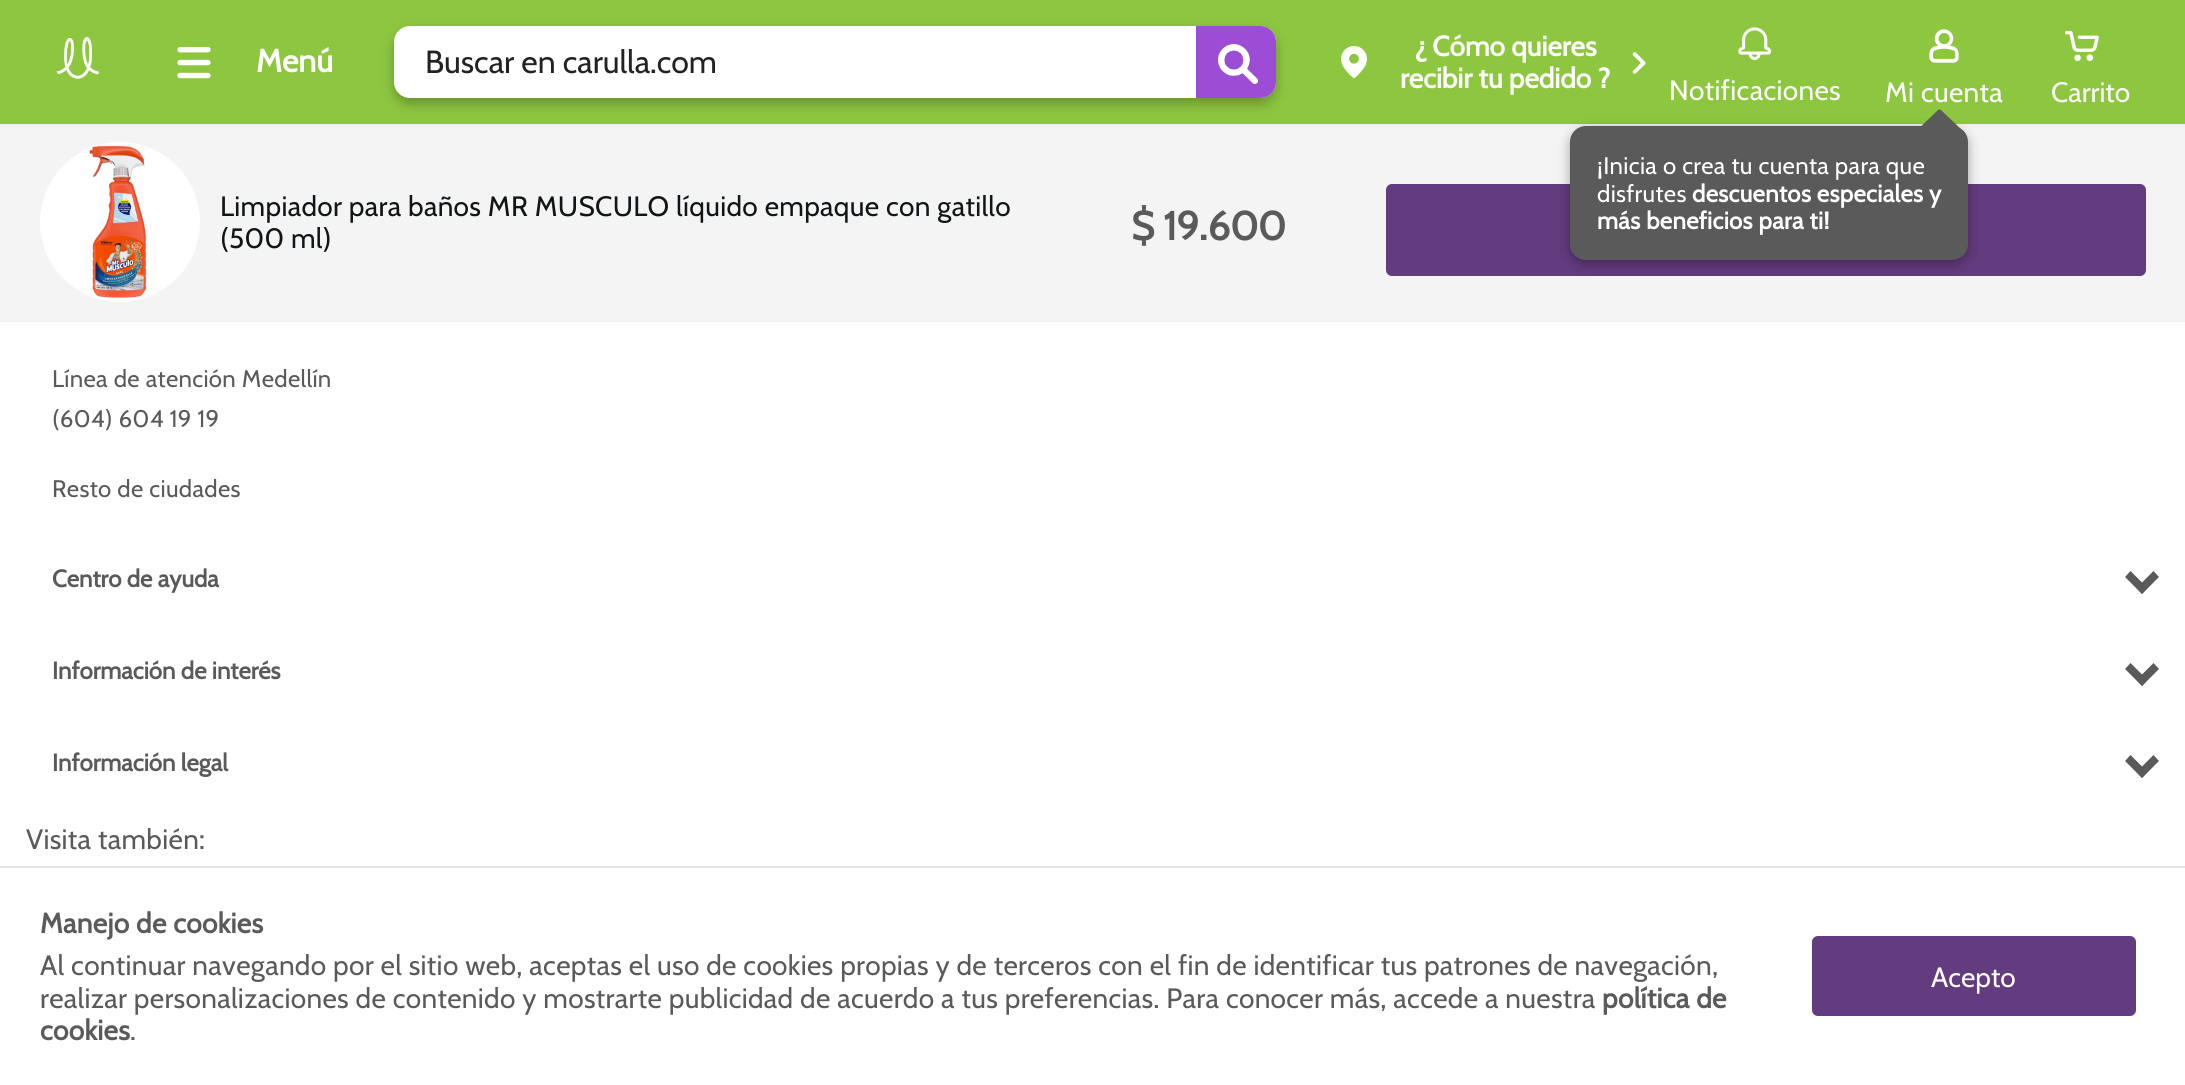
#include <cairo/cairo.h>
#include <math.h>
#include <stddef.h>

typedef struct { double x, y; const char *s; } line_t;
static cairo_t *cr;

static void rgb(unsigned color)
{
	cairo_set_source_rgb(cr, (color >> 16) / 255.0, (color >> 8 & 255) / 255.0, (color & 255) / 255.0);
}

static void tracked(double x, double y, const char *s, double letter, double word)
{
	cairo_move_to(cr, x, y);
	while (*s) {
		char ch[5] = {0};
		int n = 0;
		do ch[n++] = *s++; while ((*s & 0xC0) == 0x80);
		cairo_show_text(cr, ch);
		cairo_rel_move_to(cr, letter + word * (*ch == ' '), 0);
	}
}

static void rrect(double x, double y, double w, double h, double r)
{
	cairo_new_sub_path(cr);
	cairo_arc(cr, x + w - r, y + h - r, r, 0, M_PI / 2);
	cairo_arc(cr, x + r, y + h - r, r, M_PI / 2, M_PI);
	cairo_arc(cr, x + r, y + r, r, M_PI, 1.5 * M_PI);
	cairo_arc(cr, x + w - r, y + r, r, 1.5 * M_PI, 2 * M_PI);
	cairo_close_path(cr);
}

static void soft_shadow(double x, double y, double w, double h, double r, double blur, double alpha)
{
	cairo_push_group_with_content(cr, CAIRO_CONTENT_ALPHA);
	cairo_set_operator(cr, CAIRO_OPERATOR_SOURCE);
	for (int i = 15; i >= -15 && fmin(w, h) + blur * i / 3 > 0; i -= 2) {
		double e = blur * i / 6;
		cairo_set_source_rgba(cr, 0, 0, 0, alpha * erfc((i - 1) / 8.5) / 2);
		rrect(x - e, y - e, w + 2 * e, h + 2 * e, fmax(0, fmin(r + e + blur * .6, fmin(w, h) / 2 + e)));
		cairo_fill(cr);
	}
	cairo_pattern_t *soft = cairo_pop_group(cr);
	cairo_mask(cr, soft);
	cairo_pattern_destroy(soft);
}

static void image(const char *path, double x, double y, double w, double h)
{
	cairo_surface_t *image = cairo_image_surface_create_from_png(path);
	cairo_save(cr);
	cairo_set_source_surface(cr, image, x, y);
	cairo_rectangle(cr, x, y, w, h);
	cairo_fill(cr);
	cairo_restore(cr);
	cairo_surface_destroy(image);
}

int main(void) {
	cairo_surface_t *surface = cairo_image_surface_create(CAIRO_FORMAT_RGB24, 2185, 1085);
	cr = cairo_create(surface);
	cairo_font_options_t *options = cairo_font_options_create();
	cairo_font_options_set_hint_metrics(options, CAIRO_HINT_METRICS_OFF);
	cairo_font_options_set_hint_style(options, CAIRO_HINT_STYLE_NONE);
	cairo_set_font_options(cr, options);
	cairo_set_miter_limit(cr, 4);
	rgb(0xffffff);
	cairo_paint(cr);
	rgb(0xf4f4f4);
	cairo_rectangle(cr, 0, 124, 2185, 198);
	cairo_fill(cr);
	rgb(0x000000);
	soft_shadow(0, 0, 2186, 124, 0, 3, 0.05);
	rgb(0x8dc63f);
	cairo_rectangle(cr, 0, 0, 2185, 124);
	cairo_fill(cr);
	image("img/1.png", 56, 37, 44, 42);
	image("img/2.png", 177, 47, 34, 32);
	rgb(0xffffff);
	rrect(394, 26, 882, 72, 16);
	cairo_fill(cr);
	cairo_save(cr);
	cairo_set_fill_rule(cr, CAIRO_FILL_RULE_EVEN_ODD);
	cairo_new_path(cr);
	cairo_move_to(cr, 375, 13);
	cairo_line_to(cr, 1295, 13);
	cairo_line_to(cr, 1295, 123);
	cairo_line_to(cr, 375, 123);
	cairo_close_path(cr);
	cairo_move_to(cr, 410, 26);
	cairo_line_to(cr, 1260, 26);
	cairo_curve_to(cr, 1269, 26, 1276, 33, 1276, 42);
	cairo_line_to(cr, 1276, 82);
	cairo_curve_to(cr, 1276, 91, 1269, 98, 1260, 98);
	cairo_line_to(cr, 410, 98);
	cairo_curve_to(cr, 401, 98, 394, 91, 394, 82);
	cairo_line_to(cr, 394, 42);
	cairo_curve_to(cr, 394, 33, 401, 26, 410, 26);
	cairo_close_path(cr);
	cairo_clip(cr);
	rgb(0x000000);
	soft_shadow(394, 32, 882, 72, 16, 6, 0.26);
	cairo_restore(cr);
	rgb(0x9c4cd5);
	cairo_new_path(cr);
	cairo_move_to(cr, 1196, 26);
	cairo_line_to(cr, 1260, 26);
	cairo_curve_to(cr, 1269, 26, 1276, 33, 1276, 42);
	cairo_line_to(cr, 1276, 82);
	cairo_curve_to(cr, 1276, 91, 1269, 98, 1260, 98);
	cairo_line_to(cr, 1196, 98);
	cairo_close_path(cr);
	cairo_fill(cr);
	image("img/3.png", 1218, 44, 40, 40);
	image("img/4.png", 1341, 46, 26, 32);
	image("img/5.png", 1632, 52, 14, 22);
	image("img/6.png", 1738, 27, 33, 33);
	image("img/7.png", 1929, 29, 30, 34);
	rgb(0x633b7f);
	rrect(1386, 184, 760, 92, 6);
	cairo_fill(cr);
	rgb(0x000000);
	soft_shadow(1570, 130, 398, 134, 16, 6, 0.34);
	rgb(0x5a5a5a);
	rrect(1570, 126, 398, 134, 16);
	cairo_fill(cr);
	image("img/8.png", 2065, 30, 34, 32);
	image("img/9.png", 40, 142, 160, 160);
	cairo_new_path(cr);
	cairo_move_to(cr, 2142, 594);
	cairo_line_to(cr, 2125, 577);
	cairo_line_to(cr, 2130.5, 571);
	cairo_line_to(cr, 2147.5, 588);
	cairo_close_path(cr);
	cairo_fill(cr);
	cairo_new_path(cr);
	cairo_move_to(cr, 2142, 594);
	cairo_line_to(cr, 2136.5, 588);
	cairo_line_to(cr, 2153.5, 571);
	cairo_line_to(cr, 2159, 577);
	cairo_close_path(cr);
	cairo_fill(cr);
	cairo_new_path(cr);
	cairo_move_to(cr, 2142, 686);
	cairo_line_to(cr, 2125, 669);
	cairo_line_to(cr, 2130.5, 663);
	cairo_line_to(cr, 2147.5, 680);
	cairo_close_path(cr);
	cairo_fill(cr);
	cairo_new_path(cr);
	cairo_move_to(cr, 2142, 686);
	cairo_line_to(cr, 2136.5, 680);
	cairo_line_to(cr, 2153.5, 663);
	cairo_line_to(cr, 2159, 669);
	cairo_close_path(cr);
	cairo_fill(cr);
	cairo_new_path(cr);
	cairo_move_to(cr, 2142, 778);
	cairo_line_to(cr, 2125, 761);
	cairo_line_to(cr, 2130.5, 755);
	cairo_line_to(cr, 2147.5, 772);
	cairo_close_path(cr);
	cairo_fill(cr);
	cairo_new_path(cr);
	cairo_move_to(cr, 2142, 778);
	cairo_line_to(cr, 2136.5, 772);
	cairo_line_to(cr, 2153.5, 755);
	cairo_line_to(cr, 2159, 761);
	cairo_close_path(cr);
	cairo_fill(cr);
	rgb(0xe3e3e3);
	cairo_rectangle(cr, 0, 866, 2185, 2);
	cairo_fill(cr);
	rgb(0x633b7f);
	rrect(1812, 936, 324, 80, 6);
	cairo_fill(cr);
	cairo_select_font_face(cr, "Cabin", CAIRO_FONT_SLANT_NORMAL, CAIRO_FONT_WEIGHT_BOLD);
	cairo_set_font_size(cr, 32);
	rgb(0xffffff);
	cairo_move_to(cr, 256, 72);
	cairo_show_text(cr, "Menú");
	cairo_select_font_face(cr, "Cabin", CAIRO_FONT_SLANT_NORMAL, CAIRO_FONT_WEIGHT_NORMAL);
	rgb(0x222222);
	cairo_move_to(cr, 425, 73);
	cairo_show_text(cr, "Buscar en carulla.com");
	cairo_select_font_face(cr, "Cabin", CAIRO_FONT_SLANT_NORMAL, CAIRO_FONT_WEIGHT_BOLD);
	cairo_set_font_size(cr, 28);
	rgb(0xffffff);
	cairo_move_to(cr, 1415, 56);
	cairo_show_text(cr, "¿ Cómo quieres");
	cairo_move_to(cr, 1400, 88);
	cairo_show_text(cr, "recibir tu pedido ?");
	cairo_select_font_face(cr, "Cabin", CAIRO_FONT_SLANT_NORMAL, CAIRO_FONT_WEIGHT_NORMAL);
	tracked(1669, 100, "Notificaciones", 0.32, 0);
	tracked(1885, 102, "Mi cuenta", 0.32, 0);
	cairo_set_font_size(cr, 24);
	tracked(1597, 174, "¡Inicia o crea tu cuenta para que", 0.32, 0);
	rgb(0x5a5a5a);
	cairo_new_path(cr);
	cairo_move_to(cr, 1942, 111);
	cairo_line_to(cr, 1965, 133);
	cairo_curve_to(cr, 1966, 135, 1966, 137, 1965, 139);
	cairo_line_to(cr, 1942, 162);
	cairo_curve_to(cr, 1941, 163, 1938, 163, 1937, 162);
	cairo_line_to(cr, 1914, 139);
	cairo_curve_to(cr, 1912, 137, 1912, 135, 1914, 133);
	cairo_line_to(cr, 1937, 111);
	cairo_curve_to(cr, 1938, 109, 1941, 109, 1942, 111);
	cairo_close_path(cr);
	cairo_fill(cr);
	rgb(0xffffff);
	tracked(1597, 202, "disfrutes", 0.32, 0);
	cairo_select_font_face(cr, "Cabin", CAIRO_FONT_SLANT_NORMAL, CAIRO_FONT_WEIGHT_BOLD);
	tracked(1692, 202, "descuentos especiales y", 0.32, 0);
	tracked(1597, 229, "más beneficios para ti!", 0.32, 0);
	cairo_select_font_face(cr, "Cabin", CAIRO_FONT_SLANT_NORMAL, CAIRO_FONT_WEIGHT_NORMAL);
	cairo_set_font_size(cr, 28);
	cairo_move_to(cr, 2051, 102);
	cairo_show_text(cr, "Carrito");
	rgb(0x111517);
	tracked(220, 216, "Limpiador para baños MR MUSCULO líquido empaque con gatillo", 0.32, 0);
	tracked(220, 248, "(500 ml)", 0.32, 0);
	cairo_select_font_face(cr, "Cabin", CAIRO_FONT_SLANT_NORMAL, CAIRO_FONT_WEIGHT_BOLD);
	cairo_set_font_size(cr, 40);
	rgb(0x5a5a5a);
	cairo_move_to(cr, 1131, 240);
	cairo_show_text(cr, "$ 19.600");
	cairo_select_font_face(cr, "Cabin", CAIRO_FONT_SLANT_NORMAL, CAIRO_FONT_WEIGHT_NORMAL);
	cairo_set_font_size(cr, 24);
	{
		static const line_t items[] = {
			{52, 387, "Línea de atención Medellín"},
			{52, 427, "(604) 604 19 19"},
			{52, 497, "Resto de ciudades"},
		};
		for (size_t i = 0; i < sizeof items / sizeof *items; i++) {
			tracked(items[i].x, items[i].y, items[i].s, 0.32, 0);
		}
	}
	cairo_select_font_face(cr, "Cabin", CAIRO_FONT_SLANT_NORMAL, CAIRO_FONT_WEIGHT_BOLD);
	{
		static const line_t items[] = {
			{52, 587, "Centro de ayuda"},
			{52, 679, "Información de interés"},
			{52, 771, "Información legal"},
		};
		for (size_t i = 0; i < sizeof items / sizeof *items; i++) {
			cairo_move_to(cr, items[i].x, items[i].y);
			cairo_show_text(cr, items[i].s);
		}
	}
	cairo_select_font_face(cr, "Cabin", CAIRO_FONT_SLANT_NORMAL, CAIRO_FONT_WEIGHT_NORMAL);
	cairo_set_font_size(cr, 28);
	tracked(26, 849, "Visita también:", 0.32, 0);
	cairo_select_font_face(cr, "Cabin", CAIRO_FONT_SLANT_NORMAL, CAIRO_FONT_WEIGHT_BOLD);
	tracked(40, 933, "Manejo de cookies", 0.32, 0);
	cairo_select_font_face(cr, "Cabin", CAIRO_FONT_SLANT_NORMAL, CAIRO_FONT_WEIGHT_NORMAL);
	tracked(40, 975, "Al continuar navegando por el sitio web, aceptas el uso de cookies propias y de terceros con el fin de identificar tus patrones de navegación,", 0.32, 0);
	tracked(40, 1008, "realizar personalizaciones de contenido y mostrarte publicidad de acuerdo a tus preferencias. Para conocer más, accede a nuestra", 0.32, 0);
	cairo_select_font_face(cr, "Cabin", CAIRO_FONT_SLANT_NORMAL, CAIRO_FONT_WEIGHT_BOLD);
	tracked(1602, 1008, "política de", 0.32, 0);
	tracked(40, 1040, "cookies", 0.32, 0);
	cairo_select_font_face(cr, "Cabin", CAIRO_FONT_SLANT_NORMAL, CAIRO_FONT_WEIGHT_NORMAL);
	tracked(130, 1040, ".", 0.32, 0);
	rgb(0xffffff);
	cairo_move_to(cr, 1931, 987);
	cairo_show_text(cr, "Acepto");
	cairo_surface_write_to_png(surface, "page.png");
	cairo_font_options_destroy(options);
	cairo_destroy(cr);
	cairo_surface_destroy(surface);
	return 0;
}
